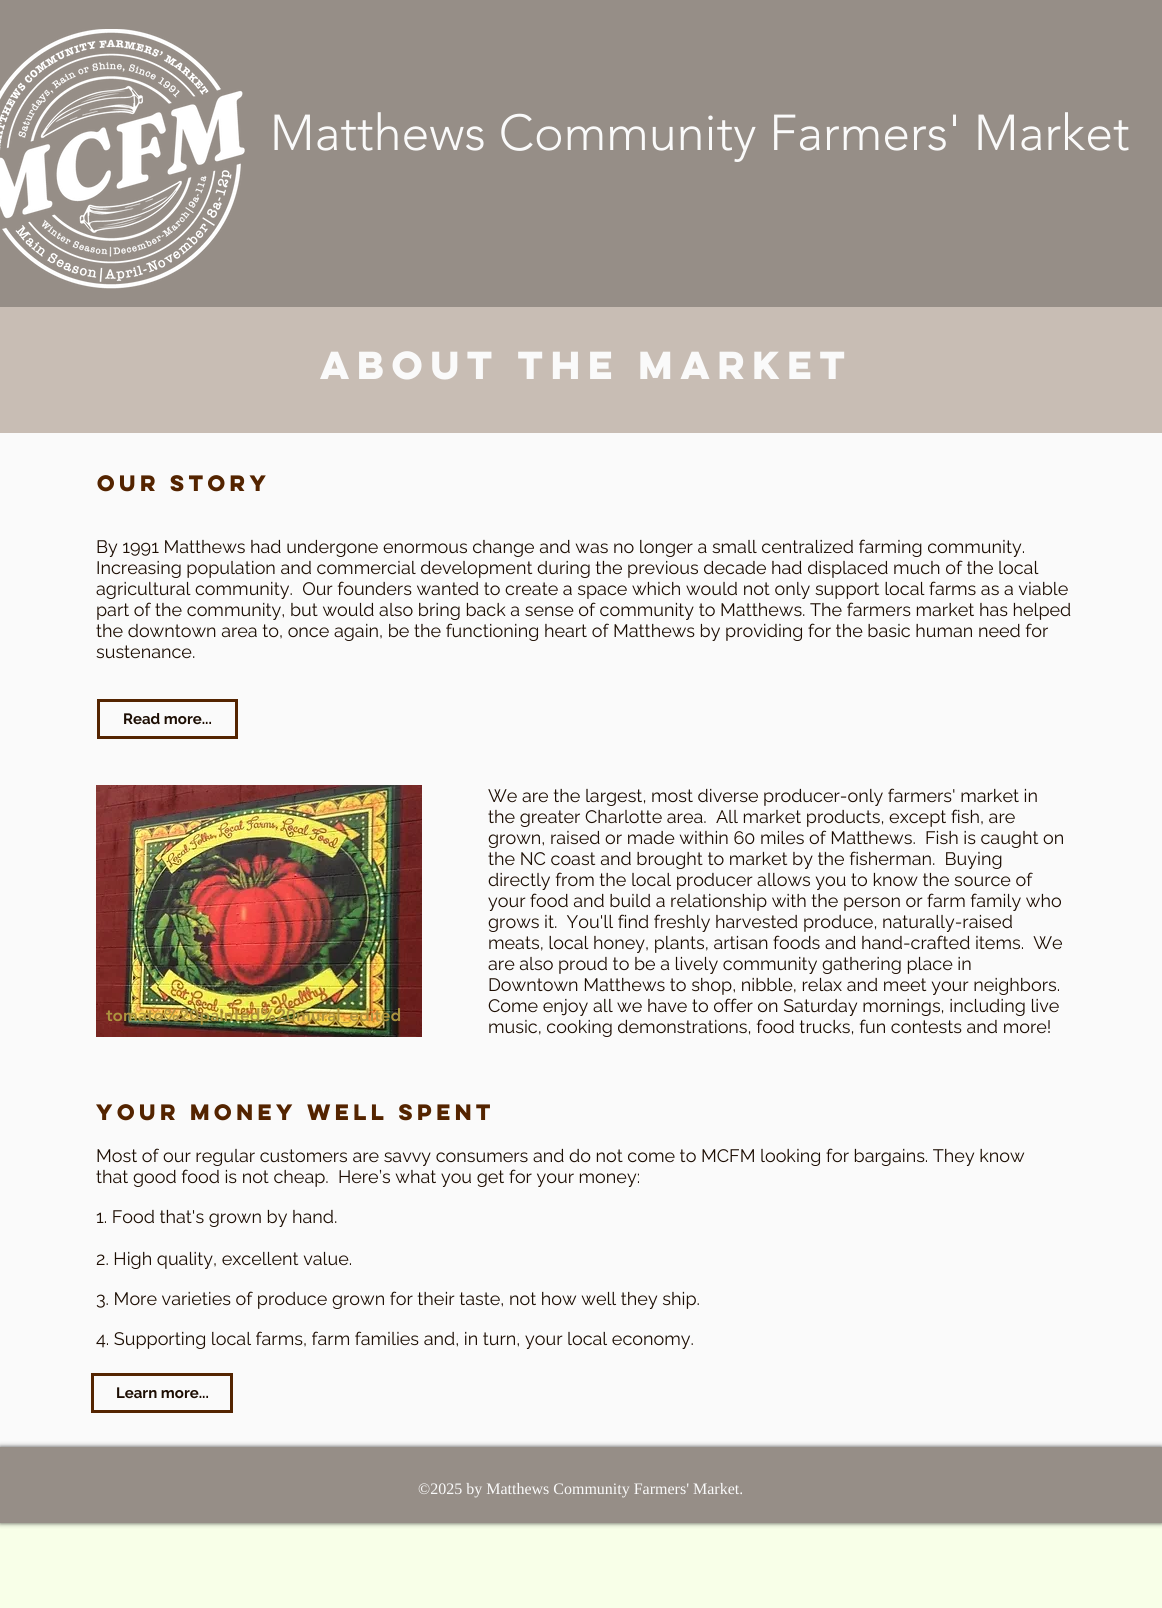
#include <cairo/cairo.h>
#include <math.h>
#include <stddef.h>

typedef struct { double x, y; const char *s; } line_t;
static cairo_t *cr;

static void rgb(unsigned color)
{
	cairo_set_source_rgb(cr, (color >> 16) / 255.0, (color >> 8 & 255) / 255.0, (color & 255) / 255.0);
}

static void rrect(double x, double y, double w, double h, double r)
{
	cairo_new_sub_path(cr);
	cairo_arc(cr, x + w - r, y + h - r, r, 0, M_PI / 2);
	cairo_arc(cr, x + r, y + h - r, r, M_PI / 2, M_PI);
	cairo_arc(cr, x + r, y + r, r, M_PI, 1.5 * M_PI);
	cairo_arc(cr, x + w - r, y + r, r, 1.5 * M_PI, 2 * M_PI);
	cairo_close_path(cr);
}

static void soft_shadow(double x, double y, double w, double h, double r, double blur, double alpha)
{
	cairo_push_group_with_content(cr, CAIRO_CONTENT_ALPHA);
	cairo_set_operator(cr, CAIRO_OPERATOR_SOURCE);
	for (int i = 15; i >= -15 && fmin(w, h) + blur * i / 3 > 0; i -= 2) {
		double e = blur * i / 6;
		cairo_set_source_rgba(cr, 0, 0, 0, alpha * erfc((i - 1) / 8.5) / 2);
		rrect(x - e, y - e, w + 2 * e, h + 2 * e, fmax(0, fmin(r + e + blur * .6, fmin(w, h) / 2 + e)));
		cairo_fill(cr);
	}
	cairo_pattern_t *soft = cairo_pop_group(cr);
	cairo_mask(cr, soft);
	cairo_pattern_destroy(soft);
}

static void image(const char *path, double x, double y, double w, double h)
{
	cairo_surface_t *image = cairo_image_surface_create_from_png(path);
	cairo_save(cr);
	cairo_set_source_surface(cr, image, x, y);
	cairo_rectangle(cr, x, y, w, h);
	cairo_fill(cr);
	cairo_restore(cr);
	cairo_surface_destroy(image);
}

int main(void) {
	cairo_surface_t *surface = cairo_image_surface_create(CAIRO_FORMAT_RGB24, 1162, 1608);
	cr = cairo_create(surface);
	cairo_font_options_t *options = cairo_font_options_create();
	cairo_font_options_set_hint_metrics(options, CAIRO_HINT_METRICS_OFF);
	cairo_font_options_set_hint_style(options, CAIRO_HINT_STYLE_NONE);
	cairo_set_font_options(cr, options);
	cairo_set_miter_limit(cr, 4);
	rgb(0xf8ffe8);
	cairo_paint(cr);
	rgb(0x968e87);
	cairo_rectangle(cr, 0, 0, 1162, 307);
	cairo_fill(cr);
	image("img/1.png", 0, 29, 245, 260);
	rgb(0xc8bdb4);
	cairo_rectangle(cr, 0, 307, 1162, 126);
	cairo_fill(cr);
	rgb(0xfafafa);
	cairo_rectangle(cr, 0, 433, 1162, 1014);
	cairo_fill(cr);
	cairo_rectangle(cr, 98.5, 700.5, 138, 37);
	rgb(0x542400);
	cairo_set_line_width(cr, 3);
	cairo_stroke(cr);
	image("img/2.png", 96, 785, 326, 252);
	cairo_rectangle(cr, 92.5, 1374.5, 139, 37);
	cairo_stroke(cr);
	rgb(0x000000);
	soft_shadow(0, 1447, 1162, 76, 0, 2.5, 0.7);
	rgb(0x968e87);
	cairo_rectangle(cr, 0, 1447, 1162, 76);
	cairo_fill(cr);
	cairo_select_font_face(cr, "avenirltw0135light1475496 Light", CAIRO_FONT_SLANT_NORMAL, CAIRO_FONT_WEIGHT_NORMAL);
	cairo_set_font_size(cr, 50);
	rgb(0xfafafa);
	cairo_move_to(cr, 270, 150);
	cairo_show_text(cr, "Matthews Community Farmers' Market");
	cairo_select_font_face(cr, "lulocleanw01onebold", CAIRO_FONT_SLANT_NORMAL, CAIRO_FONT_WEIGHT_BOLD);
	cairo_set_font_size(cr, 35);
	cairo_move_to(cr, 320, 379);
	cairo_show_text(cr, "About The Market");
	cairo_set_font_size(cr, 20);
	rgb(0x542400);
	cairo_move_to(cr, 97, 491);
	cairo_show_text(cr, "Our story");
	cairo_select_font_face(cr, "Raleway", CAIRO_FONT_SLANT_NORMAL, CAIRO_FONT_WEIGHT_NORMAL);
	cairo_set_font_size(cr, 18);
	rgb(0x1d0e03);
	{
		static const line_t items[] = {
			{96, 553, "By 1991 Matthews had undergone enormous change and was no longer a small centralized farming community."},
			{96, 574, "Increasing population and commercial development during the previous decade had displaced much of the local"},
			{96, 595, "agricultural community.  Our founders wanted to create a space which would not only support local farms as a viable"},
			{96, 616, "part of the community, but would also bring back a sense of community to Matthews. The farmers market has helped"},
			{96, 637, "the downtown area to, once again, be the functioning heart of Matthews by providing for the basic human need for"},
			{96, 658, "sustenance."},
		};
		for (size_t i = 0; i < sizeof items / sizeof *items; i++) {
			cairo_move_to(cr, items[i].x, items[i].y);
			cairo_show_text(cr, items[i].s);
		}
	}
	cairo_select_font_face(cr, "Raleway", CAIRO_FONT_SLANT_NORMAL, CAIRO_FONT_WEIGHT_BOLD);
	cairo_set_font_size(cr, 15);
	cairo_move_to(cr, 123, 724);
	cairo_show_text(cr, "Read more...");
	cairo_select_font_face(cr, "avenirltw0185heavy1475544 Black", CAIRO_FONT_SLANT_NORMAL, CAIRO_FONT_WEIGHT_NORMAL);
	cairo_set_font_size(cr, 17);
	rgb(0xad943f);
	cairo_move_to(cr, 106, 1021);
	cairo_show_text(cr, "tomato%20painted%20mural_edited");
	cairo_select_font_face(cr, "Raleway", CAIRO_FONT_SLANT_NORMAL, CAIRO_FONT_WEIGHT_NORMAL);
	cairo_set_font_size(cr, 18);
	rgb(0x1d0e03);
	{
		static const line_t items[] = {
			{488, 802, "We are the largest, most diverse producer-only farmers' market in"},
			{488, 823, "the greater Charlotte area.  All market products, except fish, are"},
			{488, 844, "grown, raised or made within 60 miles of Matthews.  Fish is caught on"},
			{488, 865, "the NC coast and brought to market by the fisherman.  Buying"},
			{488, 886, "directly from the local producer allows you to know the source of"},
			{488, 907, "your food and build a relationship with the person or farm family who"},
			{488, 928, "grows it.  You'll find freshly harvested produce, naturally-raised"},
			{488, 949, "meats, local honey, plants, artisan foods and hand-crafted items.  We"},
			{488, 970, "are also proud to be a lively community gathering place in"},
			{488, 991, "Downtown Matthews to shop, nibble, relax and meet your neighbors."},
			{488, 1012, "Come enjoy all we have to offer on Saturday mornings, including live"},
			{488, 1033, "music, cooking demonstrations, food trucks, fun contests and more!"},
		};
		for (size_t i = 0; i < sizeof items / sizeof *items; i++) {
			cairo_move_to(cr, items[i].x, items[i].y);
			cairo_show_text(cr, items[i].s);
		}
	}
	cairo_select_font_face(cr, "lulocleanw01onebold", CAIRO_FONT_SLANT_NORMAL, CAIRO_FONT_WEIGHT_BOLD);
	cairo_set_font_size(cr, 20);
	rgb(0x542400);
	cairo_move_to(cr, 96, 1120);
	cairo_show_text(cr, "Your Money Well Spent");
	cairo_select_font_face(cr, "Raleway", CAIRO_FONT_SLANT_NORMAL, CAIRO_FONT_WEIGHT_NORMAL);
	cairo_set_font_size(cr, 18);
	rgb(0x1d0e03);
	{
		static const line_t items[] = {
			{96, 1162, "Most of our regular customers are savvy consumers and do not come to MCFM looking for bargains. They know"},
			{96, 1183, "that good food is not cheap.  Here’s what you get for your money:"},
			{96, 1223, "1. Food that's grown by hand."},
			{96, 1265, "2. High quality, excellent value."},
			{96, 1305, "3. More varieties of produce grown for their taste, not how well they ship."},
			{96, 1345, "4. Supporting local farms, farm families and, in turn, your local economy."},
		};
		for (size_t i = 0; i < sizeof items / sizeof *items; i++) {
			cairo_move_to(cr, items[i].x, items[i].y);
			cairo_show_text(cr, items[i].s);
		}
	}
	cairo_select_font_face(cr, "Raleway", CAIRO_FONT_SLANT_NORMAL, CAIRO_FONT_WEIGHT_BOLD);
	cairo_set_font_size(cr, 15);
	cairo_move_to(cr, 116, 1398);
	cairo_show_text(cr, "Learn more...");
	cairo_select_font_face(cr, "Liberation Serif", CAIRO_FONT_SLANT_NORMAL, CAIRO_FONT_WEIGHT_NORMAL);
	cairo_set_font_size(cr, 16);
	rgb(0xfafafa);
	cairo_move_to(cr, 418, 1494);
	cairo_show_text(cr, "©2025 by Matthews Community Farmers' Market.");
	cairo_surface_write_to_png(surface, "page.png");
	cairo_font_options_destroy(options);
	cairo_destroy(cr);
	cairo_surface_destroy(surface);
	return 0;
}
